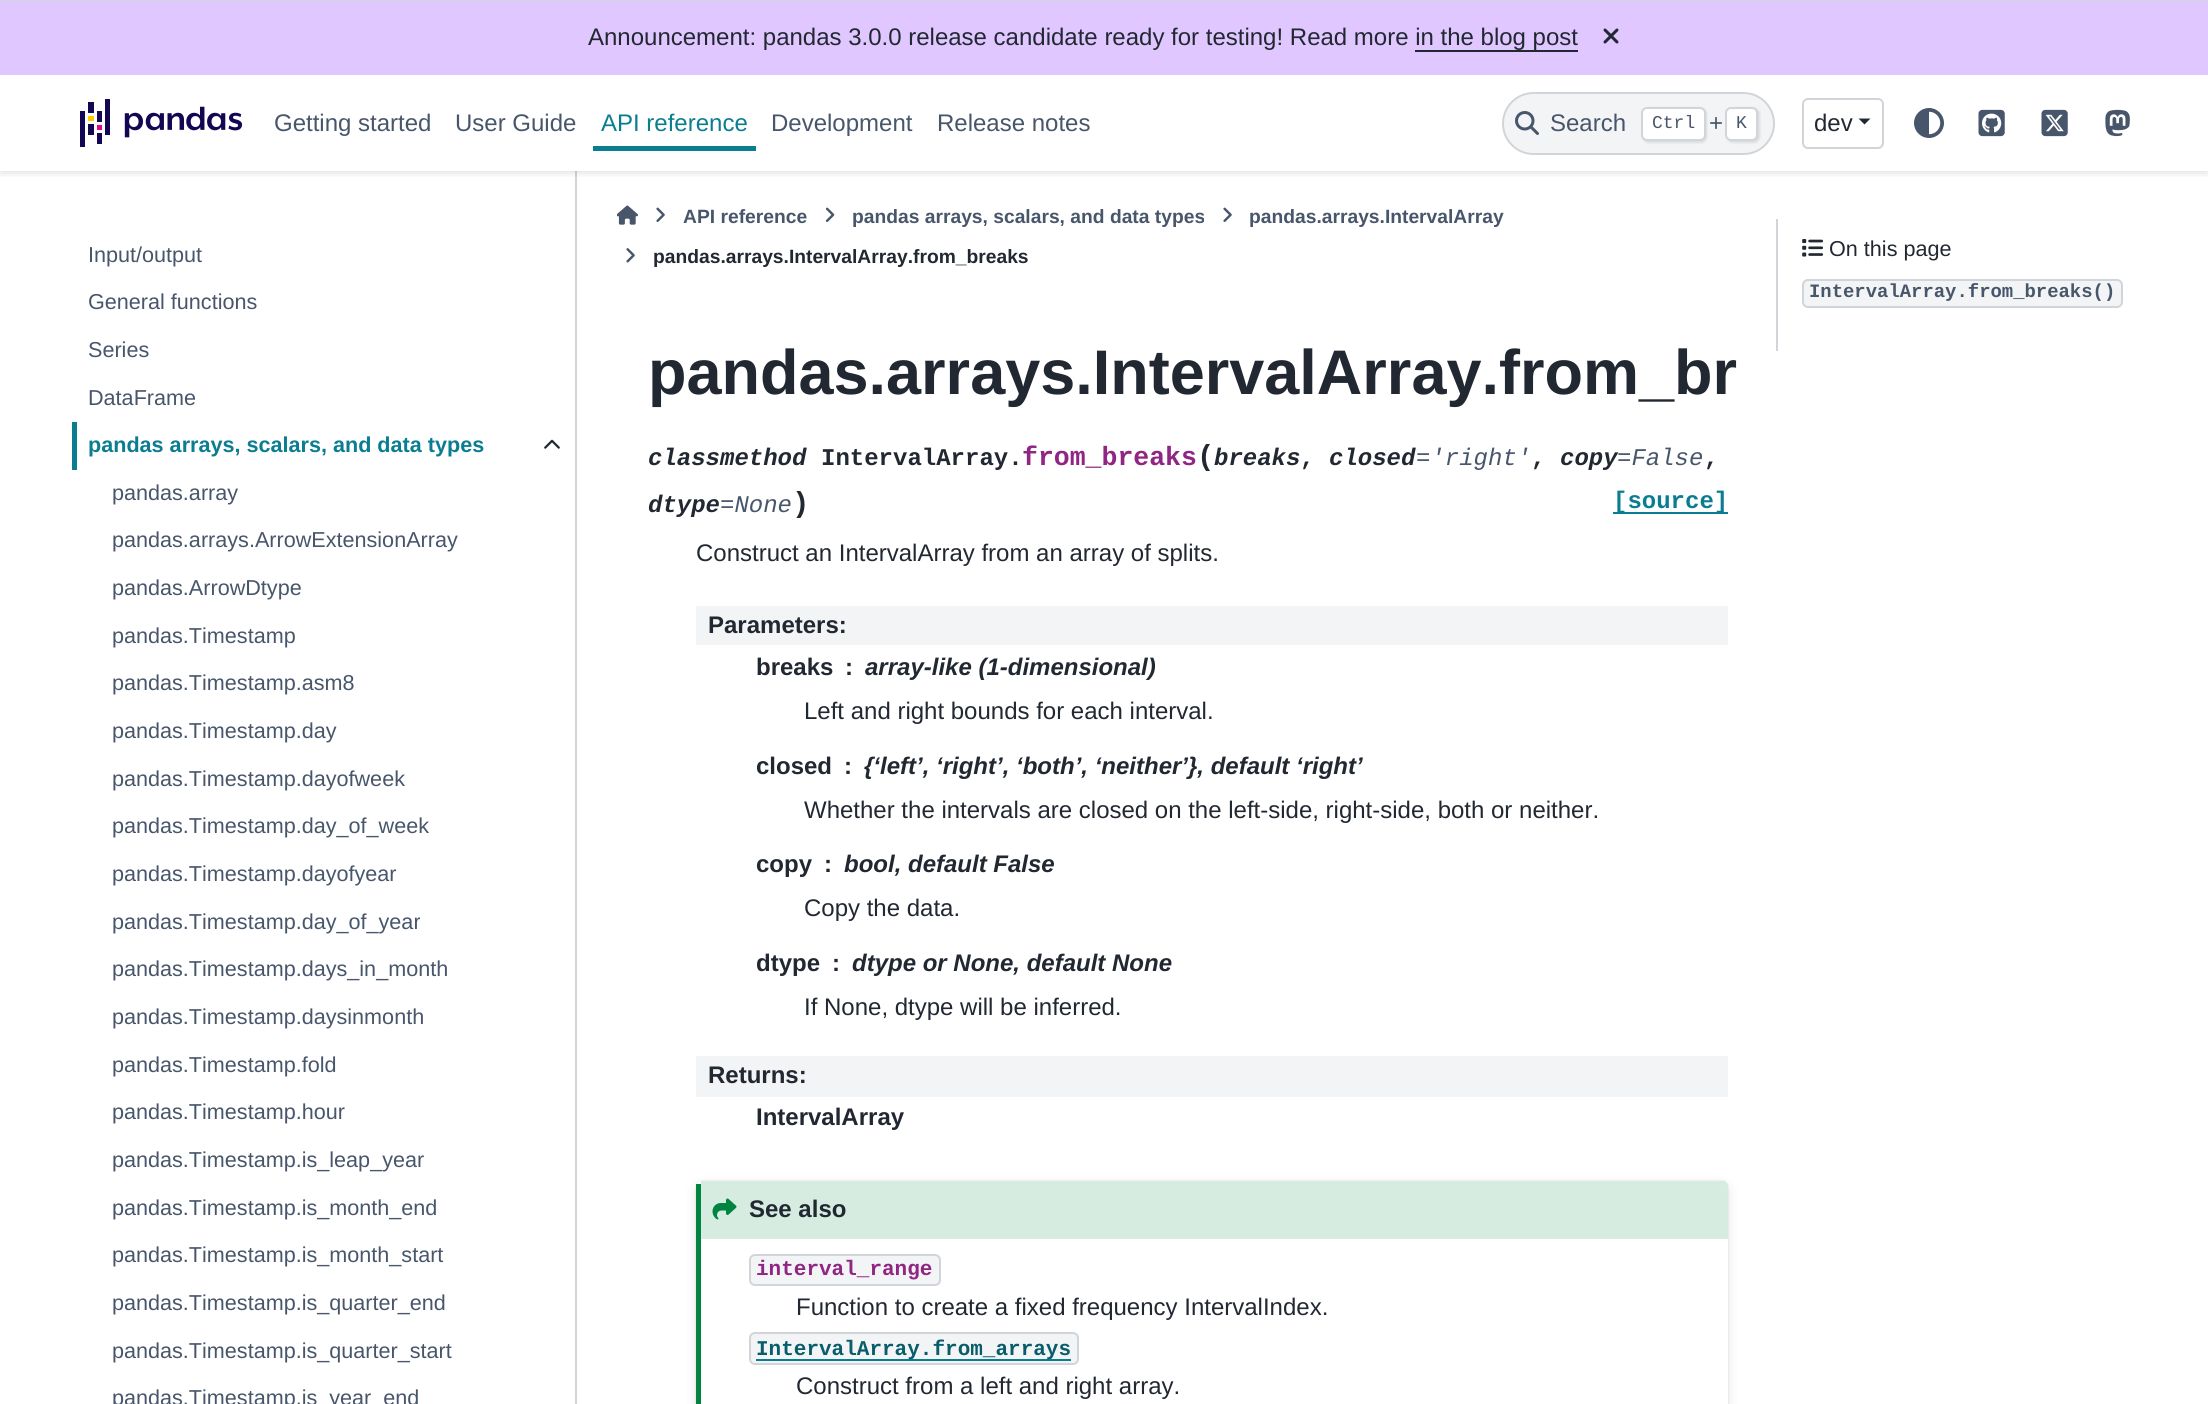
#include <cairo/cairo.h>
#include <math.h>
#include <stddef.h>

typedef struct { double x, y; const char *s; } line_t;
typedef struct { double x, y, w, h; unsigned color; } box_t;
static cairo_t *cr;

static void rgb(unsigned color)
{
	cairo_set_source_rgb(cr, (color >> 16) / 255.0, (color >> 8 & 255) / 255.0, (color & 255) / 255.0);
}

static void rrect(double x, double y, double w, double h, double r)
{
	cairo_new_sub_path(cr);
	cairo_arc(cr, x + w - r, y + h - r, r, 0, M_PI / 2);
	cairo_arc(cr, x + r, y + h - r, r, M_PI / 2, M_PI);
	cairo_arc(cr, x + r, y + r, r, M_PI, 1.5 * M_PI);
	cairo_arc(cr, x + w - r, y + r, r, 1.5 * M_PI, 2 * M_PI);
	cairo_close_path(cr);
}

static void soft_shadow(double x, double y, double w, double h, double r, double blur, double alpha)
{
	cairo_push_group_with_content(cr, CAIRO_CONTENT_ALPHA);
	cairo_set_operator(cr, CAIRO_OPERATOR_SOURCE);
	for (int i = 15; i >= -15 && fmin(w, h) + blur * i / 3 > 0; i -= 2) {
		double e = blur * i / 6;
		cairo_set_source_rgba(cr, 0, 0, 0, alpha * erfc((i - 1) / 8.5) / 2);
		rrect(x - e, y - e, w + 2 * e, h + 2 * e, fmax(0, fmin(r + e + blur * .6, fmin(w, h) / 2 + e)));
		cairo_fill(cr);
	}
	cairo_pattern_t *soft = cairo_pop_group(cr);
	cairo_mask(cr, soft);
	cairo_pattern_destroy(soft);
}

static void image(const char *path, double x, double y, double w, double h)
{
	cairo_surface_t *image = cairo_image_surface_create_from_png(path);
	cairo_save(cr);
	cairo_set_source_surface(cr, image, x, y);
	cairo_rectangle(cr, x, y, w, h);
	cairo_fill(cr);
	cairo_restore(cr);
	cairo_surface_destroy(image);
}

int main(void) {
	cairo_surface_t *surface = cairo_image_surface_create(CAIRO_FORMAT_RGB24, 2208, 1404);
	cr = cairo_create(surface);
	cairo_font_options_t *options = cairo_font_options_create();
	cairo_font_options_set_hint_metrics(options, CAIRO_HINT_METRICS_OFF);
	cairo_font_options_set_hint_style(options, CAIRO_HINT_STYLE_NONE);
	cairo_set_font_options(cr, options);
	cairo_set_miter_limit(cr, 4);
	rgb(0xffffff);
	cairo_paint(cr);
	{
		static const box_t items[] = {
			{0, 0, 2208, 1, 0xd1d5da},
			{0, 1, 2208, 74, 0xe0c7ff},
			{1415, 50, 163, 2, 0x222832},
		};
		for (size_t i = 0; i < sizeof items / sizeof *items; i++) {
			rgb(items[i].color);
			cairo_rectangle(cr, items[i].x, items[i].y, items[i].w, items[i].h);
			cairo_fill(cr);
		}
	}
	image("img/1.png", 1603, 28, 16, 16);
	rgb(0xd1d5da);
	cairo_rectangle(cr, 575, 171, 2, 1233);
	cairo_fill(cr);
	cairo_save(cr);
	cairo_rectangle(cr, 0, 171, 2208, 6);
	cairo_clip(cr);
	rgb(0x000000);
	soft_shadow(0, 78, 2208, 96, 0, 3, 0.1);
	cairo_restore(cr);
	image("img/2.png", 80, 99, 163, 48);
	rgb(0x0a7d91);
	cairo_rectangle(cr, 593, 146, 163, 5);
	cairo_fill(cr);
	rgb(0xf3f4f5);
	rrect(1503, 93, 271, 61, 30.5);
	cairo_fill_preserve(cr);
	rgb(0xd1d5da);
	cairo_stroke(cr);
	image("img/3.png", 1515, 111, 24, 24);
	rgb(0x000000);
	soft_shadow(1643, 108, 64, 35, 6, 1, 0.1);
	rgb(0xffffff);
	rrect(1642, 108, 63, 32, 5);
	cairo_fill_preserve(cr);
	rgb(0xd1d5da);
	cairo_stroke(cr);
	rgb(0x000000);
	soft_shadow(1727, 108, 33, 35, 6, 1, 0.1);
	rgb(0xffffff);
	rrect(1726, 108, 31, 32, 5);
	cairo_fill_preserve(cr);
	rgb(0xd1d5da);
	cairo_stroke(cr);
	rrect(1803, 99, 80, 49, 5);
	cairo_stroke(cr);
	rgb(0x222832);
	cairo_new_path(cr);
	cairo_move_to(cr, 1858.5, 118.5);
	cairo_line_to(cr, 1870.5, 118.5);
	cairo_line_to(cr, 1864.5, 124.5);
	cairo_close_path(cr);
	cairo_fill(cr);
	image("img/4.png", 1914, 108, 30, 30);
	image("img/5.png", 1978, 109, 27, 28);
	image("img/6.png", 2041, 109, 27, 28);
	image("img/7.png", 2105, 109, 25, 28);
	rgb(0x0a7d91);
	cairo_rectangle(cr, 72, 422, 5, 48);
	cairo_fill(cr);
	image("img/8.png", 544, 439, 16, 10);
	image("img/9.png", 617, 205, 21, 20);
	image("img/10.png", 656, 207, 9, 15);
	image("img/11.png", 825, 207, 10, 15);
	image("img/10.png", 1223, 207, 9, 15);
	image("img/12.png", 626, 248, 9, 15);
	{
		static const box_t items[] = {
			{1613, 512, 115, 2, 0x0a7d91},
			{696, 606, 1032, 39, 0xf3f4f5},
			{696, 1056, 1032, 41, 0xf3f4f5},
		};
		for (size_t i = 0; i < sizeof items / sizeof *items; i++) {
			rgb(items[i].color);
			cairo_rectangle(cr, items[i].x, items[i].y, items[i].w, items[i].h);
			cairo_fill(cr);
		}
	}
	rgb(0x000000);
	soft_shadow(696, 1181, 1032, 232, 6, 1, 0.1);
	soft_shadow(696, 1185, 1032, 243, 6, 6, 0.1);
	rgb(0xffffff);
	rrect(696, 1181, 1032, 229, 6);
	cairo_fill(cr);
	rgb(0x00843f);
	cairo_rectangle(cr, 696, 1184, 5, 220);
	cairo_fill(cr);
	rgb(0xd6ece1);
	cairo_new_path(cr);
	cairo_move_to(cr, 701, 1182);
	cairo_line_to(cr, 701, 1181);
	cairo_line_to(cr, 1724, 1181);
	cairo_curve_to(cr, 1727, 1182, 1728, 1184, 1728, 1186);
	cairo_line_to(cr, 1728, 1239);
	cairo_line_to(cr, 701, 1239);
	cairo_close_path(cr);
	cairo_fill(cr);
	image("img/13.png", 712, 1198, 25, 22);
	rgb(0xf3f4f5);
	rrect(750, 1255, 190, 30, 5);
	cairo_fill_preserve(cr);
	rgb(0xd1d5da);
	cairo_stroke(cr);
	rgb(0xf3f4f5);
	rrect(750, 1333, 328, 31, 5);
	cairo_fill_preserve(cr);
	rgb(0xd1d5da);
	cairo_stroke(cr);
	rgb(0x0a7d91);
	cairo_rectangle(cr, 756, 1359, 315, 2);
	cairo_fill(cr);
	rgb(0xd1d5da);
	cairo_rectangle(cr, 1776, 219, 2, 132);
	cairo_fill(cr);
	image("img/14.png", 1802, 239, 22, 18);
	rgb(0xf3f4f5);
	rrect(1803, 280, 319, 27, 5);
	cairo_fill_preserve(cr);
	rgb(0xd1d5da);
	cairo_stroke(cr);
	cairo_select_font_face(cr, "Liberation Sans", CAIRO_FONT_SLANT_NORMAL, CAIRO_FONT_WEIGHT_NORMAL);
	cairo_set_font_size(cr, 24);
	rgb(0x222832);
	cairo_move_to(cr, 588, 45);
	cairo_show_text(cr, "Announcement: pandas 3.0.0 release candidate ready for testing! Read more in the blog post");
	rgb(0x48566b);
	cairo_move_to(cr, 274, 131);
	cairo_show_text(cr, "Getting started");
	cairo_move_to(cr, 455, 131);
	cairo_show_text(cr, "User Guide");
	rgb(0x0a7d91);
	cairo_move_to(cr, 601, 131);
	cairo_show_text(cr, "API reference");
	rgb(0x48566b);
	{
		static const line_t items[] = {
			{771, 131, "Development"},
			{937, 131, "Release notes"},
			{1550, 131, "Search"},
		};
		for (size_t i = 0; i < sizeof items / sizeof *items; i++) {
			cairo_move_to(cr, items[i].x, items[i].y);
			cairo_show_text(cr, items[i].s);
		}
	}
	cairo_select_font_face(cr, "Liberation Mono", CAIRO_FONT_SLANT_NORMAL, CAIRO_FONT_WEIGHT_NORMAL);
	cairo_set_font_size(cr, 18);
	cairo_move_to(cr, 1652, 128);
	cairo_show_text(cr, "Ctrl");
	cairo_select_font_face(cr, "Liberation Sans", CAIRO_FONT_SLANT_NORMAL, CAIRO_FONT_WEIGHT_NORMAL);
	cairo_set_font_size(cr, 24);
	cairo_move_to(cr, 1709, 131);
	cairo_show_text(cr, "+");
	cairo_select_font_face(cr, "Liberation Mono", CAIRO_FONT_SLANT_NORMAL, CAIRO_FONT_WEIGHT_NORMAL);
	cairo_set_font_size(cr, 18);
	cairo_move_to(cr, 1736, 128);
	cairo_show_text(cr, "K");
	cairo_select_font_face(cr, "Liberation Sans", CAIRO_FONT_SLANT_NORMAL, CAIRO_FONT_WEIGHT_NORMAL);
	cairo_set_font_size(cr, 24);
	rgb(0x222832);
	cairo_move_to(cr, 1814, 131);
	cairo_show_text(cr, "dev");
	cairo_set_font_size(cr, 21.6);
	rgb(0x48566b);
	{
		static const line_t items[] = {
			{88, 262, "Input/output"},
			{88, 309, "General functions"},
			{88, 357, "Series"},
			{88, 405, "DataFrame"},
		};
		for (size_t i = 0; i < sizeof items / sizeof *items; i++) {
			cairo_move_to(cr, items[i].x, items[i].y);
			cairo_show_text(cr, items[i].s);
		}
	}
	cairo_select_font_face(cr, "Liberation Sans", CAIRO_FONT_SLANT_NORMAL, CAIRO_FONT_WEIGHT_BOLD);
	rgb(0x0a7d91);
	cairo_move_to(cr, 88, 452);
	cairo_show_text(cr, "pandas arrays, scalars, and data types");
	cairo_select_font_face(cr, "Liberation Sans", CAIRO_FONT_SLANT_NORMAL, CAIRO_FONT_WEIGHT_NORMAL);
	rgb(0x48566b);
	{
		static const line_t items[] = {
			{112, 500, "pandas.array"},
			{112, 547, "pandas.arrays.ArrowExtensionArray"},
			{112, 595, "pandas.ArrowDtype"},
			{112, 643, "pandas.Timestamp"},
			{112, 690, "pandas.Timestamp.asm8"},
			{112, 738, "pandas.Timestamp.day"},
			{112, 786, "pandas.Timestamp.dayofweek"},
			{112, 833, "pandas.Timestamp.day_of_week"},
			{112, 881, "pandas.Timestamp.dayofyear"},
			{112, 929, "pandas.Timestamp.day_of_year"},
			{112, 976, "pandas.Timestamp.days_in_month"},
			{112, 1024, "pandas.Timestamp.daysinmonth"},
			{112, 1072, "pandas.Timestamp.fold"},
			{112, 1119, "pandas.Timestamp.hour"},
			{112, 1167, "pandas.Timestamp.is_leap_year"},
			{112, 1215, "pandas.Timestamp.is_month_end"},
			{112, 1262, "pandas.Timestamp.is_month_start"},
			{112, 1310, "pandas.Timestamp.is_quarter_end"},
			{112, 1358, "pandas.Timestamp.is_quarter_start"},
			{112, 1405, "pandas.Timestamp.is_year_end"},
		};
		for (size_t i = 0; i < sizeof items / sizeof *items; i++) {
			cairo_move_to(cr, items[i].x, items[i].y);
			cairo_show_text(cr, items[i].s);
		}
	}
	cairo_select_font_face(cr, "Liberation Sans", CAIRO_FONT_SLANT_NORMAL, CAIRO_FONT_WEIGHT_BOLD);
	cairo_set_font_size(cr, 19.25);
	{
		static const line_t items[] = {
			{683, 223, "API reference"},
			{852, 223, "pandas arrays, scalars, and data types"},
			{1249, 223, "pandas.arrays.IntervalArray"},
		};
		for (size_t i = 0; i < sizeof items / sizeof *items; i++) {
			cairo_move_to(cr, items[i].x, items[i].y);
			cairo_show_text(cr, items[i].s);
		}
	}
	rgb(0x222832);
	cairo_move_to(cr, 653, 263);
	cairo_show_text(cr, "pandas.arrays.IntervalArray.from_breaks");
	cairo_set_font_size(cr, 63);
	cairo_move_to(cr, 648, 394);
	cairo_show_text(cr, "pandas.arrays.IntervalArray.from_br");
	cairo_select_font_face(cr, "Liberation Mono", CAIRO_FONT_SLANT_ITALIC, CAIRO_FONT_WEIGHT_BOLD);
	cairo_set_font_size(cr, 24);
	cairo_move_to(cr, 648, 465);
	cairo_show_text(cr, "classmethod");
	cairo_select_font_face(cr, "Liberation Mono", CAIRO_FONT_SLANT_NORMAL, CAIRO_FONT_WEIGHT_BOLD);
	cairo_move_to(cr, 821, 465);
	cairo_show_text(cr, "IntervalArray.");
	cairo_set_font_size(cr, 26.5);
	rgb(0x912583);
	cairo_move_to(cr, 1022, 465);
	cairo_show_text(cr, "from_breaks");
	cairo_set_font_size(cr, 29);
	rgb(0x222832);
	cairo_move_to(cr, 1197, 465);
	cairo_show_text(cr, "(");
	cairo_select_font_face(cr, "Liberation Mono", CAIRO_FONT_SLANT_ITALIC, CAIRO_FONT_WEIGHT_BOLD);
	cairo_set_font_size(cr, 24);
	cairo_move_to(cr, 1214, 465);
	cairo_show_text(cr, "breaks");
	cairo_select_font_face(cr, "Liberation Mono", CAIRO_FONT_SLANT_NORMAL, CAIRO_FONT_WEIGHT_BOLD);
	cairo_move_to(cr, 1300, 465);
	cairo_show_text(cr, ",");
	cairo_select_font_face(cr, "Liberation Mono", CAIRO_FONT_SLANT_ITALIC, CAIRO_FONT_WEIGHT_BOLD);
	cairo_move_to(cr, 1329, 465);
	cairo_show_text(cr, "closed");
	cairo_select_font_face(cr, "Liberation Mono", CAIRO_FONT_SLANT_ITALIC, CAIRO_FONT_WEIGHT_NORMAL);
	rgb(0x48566b);
	cairo_move_to(cr, 1416, 465);
	cairo_show_text(cr, "='right'");
	cairo_select_font_face(cr, "Liberation Mono", CAIRO_FONT_SLANT_NORMAL, CAIRO_FONT_WEIGHT_BOLD);
	rgb(0x222832);
	cairo_move_to(cr, 1531, 465);
	cairo_show_text(cr, ",");
	cairo_select_font_face(cr, "Liberation Mono", CAIRO_FONT_SLANT_ITALIC, CAIRO_FONT_WEIGHT_BOLD);
	cairo_move_to(cr, 1560, 465);
	cairo_show_text(cr, "copy");
	cairo_select_font_face(cr, "Liberation Mono", CAIRO_FONT_SLANT_ITALIC, CAIRO_FONT_WEIGHT_NORMAL);
	rgb(0x48566b);
	cairo_move_to(cr, 1617, 465);
	cairo_show_text(cr, "=False");
	cairo_select_font_face(cr, "Liberation Mono", CAIRO_FONT_SLANT_NORMAL, CAIRO_FONT_WEIGHT_BOLD);
	rgb(0x222832);
	cairo_move_to(cr, 1704, 465);
	cairo_show_text(cr, ",");
	cairo_select_font_face(cr, "Liberation Mono", CAIRO_FONT_SLANT_ITALIC, CAIRO_FONT_WEIGHT_BOLD);
	cairo_move_to(cr, 648, 512);
	cairo_show_text(cr, "dtype");
	cairo_select_font_face(cr, "Liberation Mono", CAIRO_FONT_SLANT_ITALIC, CAIRO_FONT_WEIGHT_NORMAL);
	rgb(0x48566b);
	cairo_move_to(cr, 720, 512);
	cairo_show_text(cr, "=None");
	cairo_select_font_face(cr, "Liberation Mono", CAIRO_FONT_SLANT_NORMAL, CAIRO_FONT_WEIGHT_BOLD);
	cairo_set_font_size(cr, 29);
	rgb(0x222832);
	cairo_move_to(cr, 792, 512);
	cairo_show_text(cr, ")");
	cairo_set_font_size(cr, 24);
	rgb(0x0a7d91);
	cairo_move_to(cr, 1613, 508);
	cairo_show_text(cr, "[source]");
	cairo_select_font_face(cr, "Liberation Sans", CAIRO_FONT_SLANT_NORMAL, CAIRO_FONT_WEIGHT_NORMAL);
	rgb(0x222832);
	cairo_move_to(cr, 696, 561);
	cairo_show_text(cr, "Construct an IntervalArray from an array of splits.");
	cairo_select_font_face(cr, "Liberation Sans", CAIRO_FONT_SLANT_NORMAL, CAIRO_FONT_WEIGHT_BOLD);
	{
		static const line_t items[] = {
			{708, 633, "Parameters:"},
			{756, 675, "breaks"},
			{845, 675, ":"},
		};
		for (size_t i = 0; i < sizeof items / sizeof *items; i++) {
			cairo_move_to(cr, items[i].x, items[i].y);
			cairo_show_text(cr, items[i].s);
		}
	}
	cairo_select_font_face(cr, "Liberation Sans", CAIRO_FONT_SLANT_ITALIC, CAIRO_FONT_WEIGHT_BOLD);
	cairo_move_to(cr, 865, 675);
	cairo_show_text(cr, "array-like (1-dimensional)");
	cairo_select_font_face(cr, "Liberation Sans", CAIRO_FONT_SLANT_NORMAL, CAIRO_FONT_WEIGHT_NORMAL);
	cairo_move_to(cr, 804, 719);
	cairo_show_text(cr, "Left and right bounds for each interval.");
	cairo_select_font_face(cr, "Liberation Sans", CAIRO_FONT_SLANT_NORMAL, CAIRO_FONT_WEIGHT_BOLD);
	cairo_move_to(cr, 756, 774);
	cairo_show_text(cr, "closed");
	cairo_move_to(cr, 844, 774);
	cairo_show_text(cr, ":");
	cairo_select_font_face(cr, "Liberation Sans", CAIRO_FONT_SLANT_ITALIC, CAIRO_FONT_WEIGHT_BOLD);
	cairo_move_to(cr, 864, 774);
	cairo_show_text(cr, "{‘left’, ‘right’, ‘both’, ‘neither’}, default ‘right’");
	cairo_select_font_face(cr, "Liberation Sans", CAIRO_FONT_SLANT_NORMAL, CAIRO_FONT_WEIGHT_NORMAL);
	cairo_move_to(cr, 804, 818);
	cairo_show_text(cr, "Whether the intervals are closed on the left-side, right-side, both or neither.");
	cairo_select_font_face(cr, "Liberation Sans", CAIRO_FONT_SLANT_NORMAL, CAIRO_FONT_WEIGHT_BOLD);
	cairo_move_to(cr, 756, 872);
	cairo_show_text(cr, "copy");
	cairo_move_to(cr, 824, 872);
	cairo_show_text(cr, ":");
	cairo_select_font_face(cr, "Liberation Sans", CAIRO_FONT_SLANT_ITALIC, CAIRO_FONT_WEIGHT_BOLD);
	cairo_move_to(cr, 844, 872);
	cairo_show_text(cr, "bool, default False");
	cairo_select_font_face(cr, "Liberation Sans", CAIRO_FONT_SLANT_NORMAL, CAIRO_FONT_WEIGHT_NORMAL);
	cairo_move_to(cr, 804, 916);
	cairo_show_text(cr, "Copy the data.");
	cairo_select_font_face(cr, "Liberation Sans", CAIRO_FONT_SLANT_NORMAL, CAIRO_FONT_WEIGHT_BOLD);
	cairo_move_to(cr, 756, 971);
	cairo_show_text(cr, "dtype");
	cairo_move_to(cr, 832, 971);
	cairo_show_text(cr, ":");
	cairo_select_font_face(cr, "Liberation Sans", CAIRO_FONT_SLANT_ITALIC, CAIRO_FONT_WEIGHT_BOLD);
	cairo_move_to(cr, 852, 971);
	cairo_show_text(cr, "dtype or None, default None");
	cairo_select_font_face(cr, "Liberation Sans", CAIRO_FONT_SLANT_NORMAL, CAIRO_FONT_WEIGHT_NORMAL);
	cairo_move_to(cr, 804, 1015);
	cairo_show_text(cr, "If None, dtype will be inferred.");
	cairo_select_font_face(cr, "Liberation Sans", CAIRO_FONT_SLANT_NORMAL, CAIRO_FONT_WEIGHT_BOLD);
	{
		static const line_t items[] = {
			{708, 1083, "Returns:"},
			{756, 1125, "IntervalArray"},
			{749, 1217, "See also"},
		};
		for (size_t i = 0; i < sizeof items / sizeof *items; i++) {
			cairo_move_to(cr, items[i].x, items[i].y);
			cairo_show_text(cr, items[i].s);
		}
	}
	cairo_select_font_face(cr, "Liberation Mono", CAIRO_FONT_SLANT_NORMAL, CAIRO_FONT_WEIGHT_BOLD);
	cairo_set_font_size(cr, 21);
	rgb(0x912583);
	cairo_move_to(cr, 756, 1275);
	cairo_show_text(cr, "interval_range");
	cairo_select_font_face(cr, "Liberation Sans", CAIRO_FONT_SLANT_NORMAL, CAIRO_FONT_WEIGHT_NORMAL);
	cairo_set_font_size(cr, 24);
	rgb(0x222832);
	cairo_move_to(cr, 796, 1315);
	cairo_show_text(cr, "Function to create a fixed frequency IntervalIndex.");
	cairo_select_font_face(cr, "Liberation Mono", CAIRO_FONT_SLANT_NORMAL, CAIRO_FONT_WEIGHT_BOLD);
	cairo_set_font_size(cr, 21);
	rgb(0x085d6c);
	cairo_move_to(cr, 756, 1355);
	cairo_show_text(cr, "IntervalArray.from_arrays");
	cairo_select_font_face(cr, "Liberation Sans", CAIRO_FONT_SLANT_NORMAL, CAIRO_FONT_WEIGHT_NORMAL);
	cairo_set_font_size(cr, 24);
	rgb(0x222832);
	cairo_move_to(cr, 796, 1394);
	cairo_show_text(cr, "Construct from a left and right array.");
	cairo_set_font_size(cr, 21.6);
	cairo_move_to(cr, 1829, 256);
	cairo_show_text(cr, "On this page");
	cairo_select_font_face(cr, "Liberation Mono", CAIRO_FONT_SLANT_NORMAL, CAIRO_FONT_WEIGHT_BOLD);
	cairo_set_font_size(cr, 18.9);
	rgb(0x48566b);
	cairo_move_to(cr, 1809, 297);
	cairo_show_text(cr, "IntervalArray.from_breaks()");
	cairo_surface_write_to_png(surface, "page.png");
	cairo_font_options_destroy(options);
	cairo_destroy(cr);
	cairo_surface_destroy(surface);
	return 0;
}
